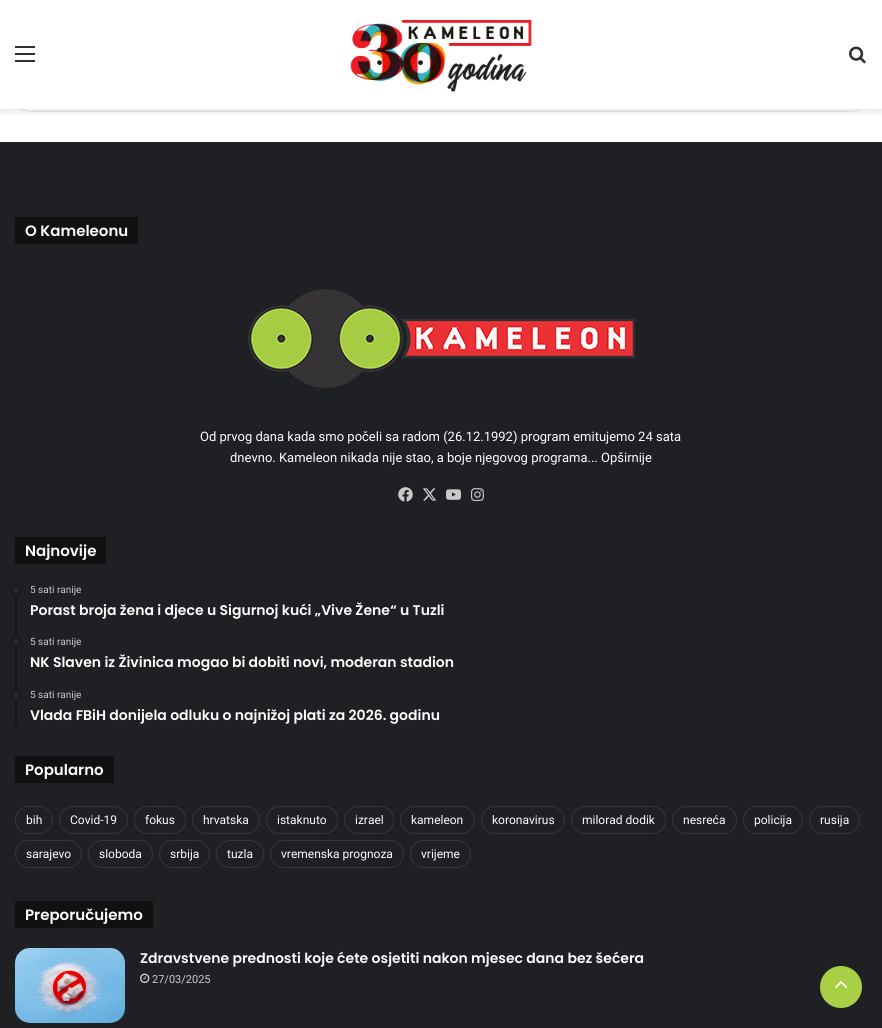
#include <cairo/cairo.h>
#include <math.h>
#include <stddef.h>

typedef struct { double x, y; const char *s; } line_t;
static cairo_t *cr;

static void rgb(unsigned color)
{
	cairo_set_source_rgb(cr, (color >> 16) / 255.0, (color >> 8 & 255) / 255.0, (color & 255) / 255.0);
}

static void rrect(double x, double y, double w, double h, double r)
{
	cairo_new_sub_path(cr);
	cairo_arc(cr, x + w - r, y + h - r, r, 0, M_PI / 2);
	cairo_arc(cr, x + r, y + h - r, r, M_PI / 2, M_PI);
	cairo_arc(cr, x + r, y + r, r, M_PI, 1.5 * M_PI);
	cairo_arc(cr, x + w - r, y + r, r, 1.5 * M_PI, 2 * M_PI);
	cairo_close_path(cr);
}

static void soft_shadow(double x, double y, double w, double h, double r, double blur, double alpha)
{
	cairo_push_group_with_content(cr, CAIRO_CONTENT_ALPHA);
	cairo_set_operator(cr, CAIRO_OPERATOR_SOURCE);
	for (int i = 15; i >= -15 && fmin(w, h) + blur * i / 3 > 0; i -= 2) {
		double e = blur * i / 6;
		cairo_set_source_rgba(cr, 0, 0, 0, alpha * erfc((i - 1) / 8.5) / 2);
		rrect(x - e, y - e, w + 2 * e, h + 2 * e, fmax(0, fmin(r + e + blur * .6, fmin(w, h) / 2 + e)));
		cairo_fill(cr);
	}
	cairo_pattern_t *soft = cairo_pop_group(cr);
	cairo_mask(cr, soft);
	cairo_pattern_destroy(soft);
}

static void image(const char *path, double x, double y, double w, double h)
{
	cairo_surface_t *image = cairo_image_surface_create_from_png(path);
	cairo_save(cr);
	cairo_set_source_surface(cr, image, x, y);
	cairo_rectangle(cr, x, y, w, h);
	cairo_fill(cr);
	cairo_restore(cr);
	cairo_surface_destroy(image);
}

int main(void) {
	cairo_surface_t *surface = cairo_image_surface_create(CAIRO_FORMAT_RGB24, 882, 1028);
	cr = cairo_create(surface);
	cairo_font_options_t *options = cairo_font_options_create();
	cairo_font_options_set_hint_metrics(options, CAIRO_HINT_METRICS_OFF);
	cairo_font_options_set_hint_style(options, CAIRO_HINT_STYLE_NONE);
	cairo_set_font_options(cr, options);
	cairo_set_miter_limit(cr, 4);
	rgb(0xffffff);
	cairo_paint(cr);
	rrect(15.5, 10.5, 851, 101, 14.5);
	rgb(0xe6e6e6);
	cairo_set_line_width(cr, 1);
	cairo_stroke(cr);
	cairo_save(cr);
	cairo_rectangle(cr, 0, 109, 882, 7);
	cairo_clip(cr);
	rgb(0x636363);
	soft_shadow(0, 2, 882, 109, 0, 4, 0.2);
	cairo_restore(cr);
	cairo_set_source_rgba(cr, 1, 1, 1, 0.95);
	cairo_rectangle(cr, 15, 10, 852, 99);
	cairo_fill(cr);
	rgb(0x2c2f34);
	cairo_rectangle(cr, 15, 53, 20, 2);
	cairo_fill(cr);
	cairo_rectangle(cr, 15, 46, 20, 2);
	cairo_fill(cr);
	cairo_rectangle(cr, 15, 60, 20, 2);
	cairo_fill(cr);
	image("img/1.png", 350, 20, 182, 72);
	image("img/2.png", 849, 46, 17, 18);
	rgb(0x1f2024);
	cairo_rectangle(cr, 0, 142, 882, 886);
	cairo_fill(cr);
	rgb(0x111111);
	cairo_rectangle(cr, 15, 217, 123, 27);
	cairo_fill(cr);
	image("img/3.png", 248, 289, 387, 99);
	image("img/4.png", 398, 487, 15, 15);
	image("img/5.png", 422, 488, 15, 13);
	image("img/6.png", 446, 489, 15, 11);
	image("img/7.png", 471, 488, 13, 13);
	cairo_rectangle(cr, 15, 537, 91, 27);
	cairo_fill(cr);
	rgb(0x161619);
	cairo_rectangle(cr, 15, 584, 2, 142);
	cairo_fill(cr);
	rgb(0x27292d);
	cairo_arc(cr, 16, 590, 4.5, 0, 2 * M_PI);
	cairo_fill_preserve(cr);
	rgb(0x1b1c1f);
	cairo_set_line_width(cr, 3);
	cairo_stroke(cr);
	rgb(0x27292d);
	cairo_arc(cr, 16, 642, 4.5, 0, 2 * M_PI);
	cairo_fill_preserve(cr);
	rgb(0x1b1c1f);
	cairo_stroke(cr);
	rgb(0x27292d);
	cairo_arc(cr, 16, 695, 4.5, 0, 2 * M_PI);
	cairo_fill_preserve(cr);
	rgb(0x1b1c1f);
	cairo_stroke(cr);
	rgb(0x111111);
	cairo_rectangle(cr, 15, 756, 99, 27);
	cairo_fill(cr);
	rrect(15.5, 806.5, 37, 27, 13.5);
	rgb(0x35363a);
	cairo_set_line_width(cr, 1);
	cairo_stroke(cr);
	rrect(59.5, 806.5, 68, 27, 13.5);
	cairo_stroke(cr);
	rrect(134.5, 806.5, 51, 27, 13.5);
	cairo_stroke(cr);
	rrect(192.5, 806.5, 67, 27, 13.5);
	cairo_stroke(cr);
	rrect(266.5, 806.5, 71, 27, 13.5);
	cairo_stroke(cr);
	rrect(344.5, 806.5, 49, 27, 13.5);
	cairo_stroke(cr);
	rrect(400.5, 806.5, 74, 27, 13.5);
	cairo_stroke(cr);
	rrect(481.5, 806.5, 83, 27, 13.5);
	cairo_stroke(cr);
	rrect(571.5, 806.5, 94, 27, 13.5);
	cairo_stroke(cr);
	rrect(672.5, 806.5, 64, 27, 13.5);
	cairo_stroke(cr);
	rrect(743.5, 806.5, 59, 27, 13.5);
	cairo_stroke(cr);
	rrect(809.5, 806.5, 50, 27, 13.5);
	cairo_stroke(cr);
	rrect(15.5, 840.5, 66, 27, 13.5);
	cairo_stroke(cr);
	rrect(88.5, 840.5, 64, 27, 13.5);
	cairo_stroke(cr);
	rrect(159.5, 840.5, 50, 27, 13.5);
	cairo_stroke(cr);
	rrect(216.5, 840.5, 47, 27, 13.5);
	cairo_stroke(cr);
	rrect(270.5, 840.5, 133, 27, 13.5);
	cairo_stroke(cr);
	rrect(410.5, 840.5, 60, 27, 13.5);
	cairo_stroke(cr);
	rgb(0x111111);
	cairo_rectangle(cr, 15, 901, 138, 27);
	cairo_fill(cr);
	image("img/8.png", 15, 948, 110, 75);
	image("img/9.png", 140, 973, 10, 10);
	rgb(0xa8cf45);
	cairo_arc(cr, 841, 987, 21, 0, 2 * M_PI);
	cairo_fill(cr);
	image("img/10.png", 835, 981, 13, 8);
	cairo_select_font_face(cr, "Poppins SemiBold", CAIRO_FONT_SLANT_NORMAL, CAIRO_FONT_WEIGHT_NORMAL);
	cairo_set_font_size(cr, 15);
	rgb(0xfdfdfd);
	cairo_move_to(cr, 25, 236);
	cairo_show_text(cr, "O Kameleonu");
	cairo_select_font_face(cr, "Roboto", CAIRO_FONT_SLANT_NORMAL, CAIRO_FONT_WEIGHT_NORMAL);
	cairo_set_font_size(cr, 13);
	cairo_move_to(cr, 200, 441);
	cairo_show_text(cr, "Od prvog dana kada smo počeli sa radom (26.12.1992) program emitujemo 24 sata");
	cairo_move_to(cr, 230, 462);
	cairo_show_text(cr, "dnevno. Kameleon nikada nije stao, a boje njegovog programa... Opširnije");
	cairo_select_font_face(cr, "Poppins SemiBold", CAIRO_FONT_SLANT_NORMAL, CAIRO_FONT_WEIGHT_NORMAL);
	cairo_set_font_size(cr, 15);
	cairo_move_to(cr, 25, 556);
	cairo_show_text(cr, "Najnovije");
	cairo_select_font_face(cr, "Roboto", CAIRO_FONT_SLANT_NORMAL, CAIRO_FONT_WEIGHT_NORMAL);
	cairo_set_font_size(cr, 10);
	rgb(0xcacaca);
	cairo_move_to(cr, 30, 593);
	cairo_show_text(cr, "5 sati ranije");
	cairo_select_font_face(cr, "Poppins SemiBold", CAIRO_FONT_SLANT_NORMAL, CAIRO_FONT_WEIGHT_NORMAL);
	cairo_set_font_size(cr, 14);
	rgb(0xfdfdfd);
	cairo_move_to(cr, 30, 615);
	cairo_show_text(cr, "Porast broja žena i djece u Sigurnoj kući „Vive Žene“ u Tuzli");
	cairo_select_font_face(cr, "Roboto", CAIRO_FONT_SLANT_NORMAL, CAIRO_FONT_WEIGHT_NORMAL);
	cairo_set_font_size(cr, 10);
	rgb(0xcacaca);
	cairo_move_to(cr, 30, 645);
	cairo_show_text(cr, "5 sati ranije");
	cairo_select_font_face(cr, "Poppins SemiBold", CAIRO_FONT_SLANT_NORMAL, CAIRO_FONT_WEIGHT_NORMAL);
	cairo_set_font_size(cr, 14);
	rgb(0xfdfdfd);
	cairo_move_to(cr, 30, 667);
	cairo_show_text(cr, "NK Slaven iz Živinica mogao bi dobiti novi, moderan stadion");
	cairo_select_font_face(cr, "Roboto", CAIRO_FONT_SLANT_NORMAL, CAIRO_FONT_WEIGHT_NORMAL);
	cairo_set_font_size(cr, 10);
	rgb(0xcacaca);
	cairo_move_to(cr, 30, 698);
	cairo_show_text(cr, "5 sati ranije");
	cairo_select_font_face(cr, "Poppins SemiBold", CAIRO_FONT_SLANT_NORMAL, CAIRO_FONT_WEIGHT_NORMAL);
	cairo_set_font_size(cr, 14);
	rgb(0xfdfdfd);
	cairo_move_to(cr, 30, 720);
	cairo_show_text(cr, "Vlada FBiH donijela odluku o najnižoj plati za 2026. godinu");
	cairo_set_font_size(cr, 15);
	cairo_move_to(cr, 25, 775);
	cairo_show_text(cr, "Popularno");
	cairo_select_font_face(cr, "Roboto", CAIRO_FONT_SLANT_NORMAL, CAIRO_FONT_WEIGHT_NORMAL);
	cairo_set_font_size(cr, 12);
	{
		static const line_t items[] = {
			{26, 824, "bih"},
			{70, 824, "Covid-19"},
			{145, 824, "fokus"},
			{203, 824, "hrvatska"},
			{277, 824, "istaknuto"},
			{355, 824, "izrael"},
			{411, 824, "kameleon"},
			{492, 824, "koronavirus"},
			{582, 824, "milorad dodik"},
			{683, 824, "nesreća"},
			{754, 824, "policija"},
			{820, 824, "rusija"},
			{26, 858, "sarajevo"},
			{99, 858, "sloboda"},
			{170, 858, "srbija"},
			{227, 858, "tuzla"},
			{281, 858, "vremenska prognoza"},
			{421, 858, "vrijeme"},
		};
		for (size_t i = 0; i < sizeof items / sizeof *items; i++) {
			cairo_move_to(cr, items[i].x, items[i].y);
			cairo_show_text(cr, items[i].s);
		}
	}
	cairo_select_font_face(cr, "Poppins SemiBold", CAIRO_FONT_SLANT_NORMAL, CAIRO_FONT_WEIGHT_NORMAL);
	cairo_set_font_size(cr, 15);
	cairo_move_to(cr, 25, 920);
	cairo_show_text(cr, "Preporučujemo");
	cairo_set_font_size(cr, 14);
	cairo_move_to(cr, 140, 963);
	cairo_show_text(cr, "Zdravstvene prednosti koje ćete osjetiti nakon mjesec dana bez šećera");
	cairo_select_font_face(cr, "Roboto", CAIRO_FONT_SLANT_NORMAL, CAIRO_FONT_WEIGHT_NORMAL);
	cairo_set_font_size(cr, 11);
	rgb(0xcacaca);
	cairo_move_to(cr, 152, 983);
	cairo_show_text(cr, "27/03/2025");
	cairo_surface_write_to_png(surface, "page.png");
	cairo_font_options_destroy(options);
	cairo_destroy(cr);
	cairo_surface_destroy(surface);
	return 0;
}
